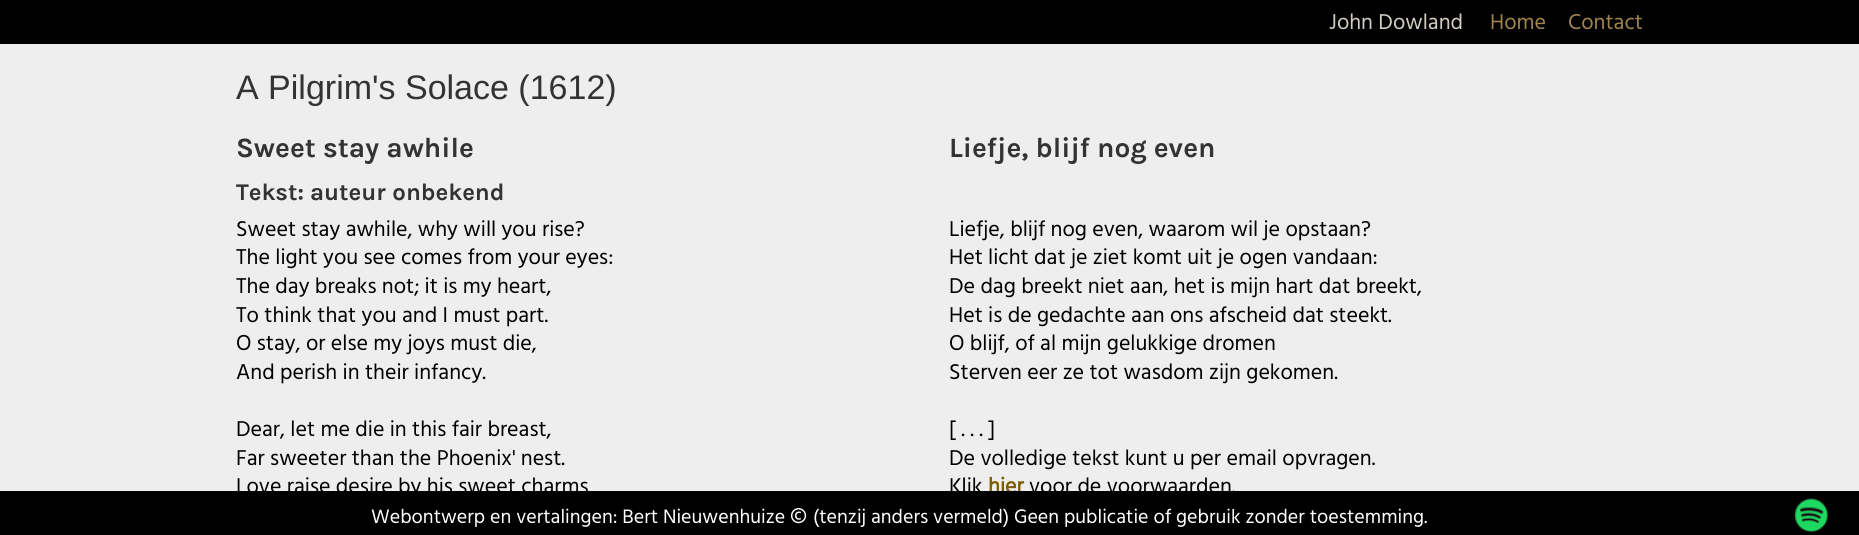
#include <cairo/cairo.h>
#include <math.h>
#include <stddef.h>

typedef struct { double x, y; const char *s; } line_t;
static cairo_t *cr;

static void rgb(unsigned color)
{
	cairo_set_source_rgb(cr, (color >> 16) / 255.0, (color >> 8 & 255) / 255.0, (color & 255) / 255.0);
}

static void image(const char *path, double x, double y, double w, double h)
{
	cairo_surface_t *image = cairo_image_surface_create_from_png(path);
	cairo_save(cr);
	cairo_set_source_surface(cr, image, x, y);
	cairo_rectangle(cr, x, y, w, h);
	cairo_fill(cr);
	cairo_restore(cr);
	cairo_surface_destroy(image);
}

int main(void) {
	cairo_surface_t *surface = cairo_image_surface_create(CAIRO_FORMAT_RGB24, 1859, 535);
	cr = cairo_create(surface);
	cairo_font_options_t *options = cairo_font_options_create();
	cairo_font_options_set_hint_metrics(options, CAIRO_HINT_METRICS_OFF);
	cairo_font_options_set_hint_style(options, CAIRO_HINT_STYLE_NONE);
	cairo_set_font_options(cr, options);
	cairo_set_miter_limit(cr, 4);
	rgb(0xeeeeee);
	cairo_paint(cr);
	rgb(0x000000);
	cairo_rectangle(cr, 0, 0, 1859, 44);
	cairo_fill(cr);
	cairo_select_font_face(cr, "Hind", CAIRO_FONT_SLANT_NORMAL, CAIRO_FONT_WEIGHT_NORMAL);
	cairo_set_font_size(cr, 22);
	rgb(0xd2cec4);
	cairo_move_to(cr, 1329, 29);
	cairo_show_text(cr, "John Dowland");
	rgb(0xa0844e);
	cairo_move_to(cr, 1490, 29);
	cairo_show_text(cr, "Home");
	cairo_move_to(cr, 1568, 29);
	cairo_show_text(cr, "Contact");
	cairo_select_font_face(cr, "Liberation Sans", CAIRO_FONT_SLANT_NORMAL, CAIRO_FONT_WEIGHT_NORMAL);
	cairo_set_font_size(cr, 34);
	rgb(0x333333);
	cairo_move_to(cr, 236, 99);
	cairo_show_text(cr, "A Pilgrim's Solace (1612)");
	cairo_select_font_face(cr, "Karla", CAIRO_FONT_SLANT_NORMAL, CAIRO_FONT_WEIGHT_BOLD);
	cairo_set_font_size(cr, 28);
	cairo_move_to(cr, 236, 157);
	cairo_show_text(cr, "Sweet stay awhile");
	cairo_set_font_size(cr, 24);
	cairo_move_to(cr, 236, 200);
	cairo_show_text(cr, "Tekst: auteur onbekend");
	cairo_select_font_face(cr, "Hind", CAIRO_FONT_SLANT_NORMAL, CAIRO_FONT_WEIGHT_NORMAL);
	cairo_set_font_size(cr, 22);
	rgb(0x000000);
	{
		static const line_t items[] = {
			{236, 236, "Sweet stay awhile, why will you rise?"},
			{236, 264, "The light you see comes from your eyes:"},
			{236, 293, "The day breaks not; it is my heart,"},
			{236, 322, "To think that you and I must part."},
			{236, 350, "O stay, or else my joys must die,"},
			{236, 379, "And perish in their infancy."},
			{236, 436, "Dear, let me die in this fair breast,"},
			{236, 465, "Far sweeter than the Phoenix' nest."},
			{236, 493, "Love raise desire by his sweet charms"},
		};
		for (size_t i = 0; i < sizeof items / sizeof *items; i++) {
			cairo_move_to(cr, items[i].x, items[i].y);
			cairo_show_text(cr, items[i].s);
		}
	}
	cairo_select_font_face(cr, "Karla", CAIRO_FONT_SLANT_NORMAL, CAIRO_FONT_WEIGHT_BOLD);
	cairo_set_font_size(cr, 28);
	rgb(0x333333);
	cairo_move_to(cr, 949, 157);
	cairo_show_text(cr, "Liefje, blijf nog even");
	cairo_select_font_face(cr, "Hind", CAIRO_FONT_SLANT_NORMAL, CAIRO_FONT_WEIGHT_NORMAL);
	cairo_set_font_size(cr, 22);
	rgb(0x000000);
	{
		static const line_t items[] = {
			{949, 236, "Liefje, blijf nog even, waarom wil je opstaan?"},
			{949, 264, "Het licht dat je ziet komt uit je ogen vandaan:"},
			{949, 293, "De dag breekt niet aan, het is mijn hart dat breekt,"},
			{949, 322, "Het is de gedachte aan ons afscheid dat steekt."},
			{949, 350, "O blijf, of al mijn gelukkige dromen"},
			{949, 379, "Sterven eer ze tot wasdom zijn gekomen."},
			{949, 436, "[ . . . ]"},
			{949, 465, "De volledige tekst kunt u per email opvragen."},
			{949, 493, "Klik"},
		};
		for (size_t i = 0; i < sizeof items / sizeof *items; i++) {
			cairo_move_to(cr, items[i].x, items[i].y);
			cairo_show_text(cr, items[i].s);
		}
	}
	cairo_select_font_face(cr, "Hind", CAIRO_FONT_SLANT_NORMAL, CAIRO_FONT_WEIGHT_BOLD);
	rgb(0x7e5c00);
	cairo_move_to(cr, 988, 493);
	cairo_show_text(cr, "hier");
	cairo_select_font_face(cr, "Hind", CAIRO_FONT_SLANT_NORMAL, CAIRO_FONT_WEIGHT_NORMAL);
	rgb(0x000000);
	cairo_move_to(cr, 1029, 493);
	cairo_show_text(cr, "voor de voorwaarden.");
	cairo_rectangle(cr, 0, 491, 1859, 44);
	cairo_fill(cr);
	cairo_set_font_size(cr, 20);
	rgb(0xffffff);
	cairo_move_to(cr, 371, 523);
	cairo_show_text(cr, "Webontwerp en vertalingen: Bert Nieuwenhuize");
	cairo_set_font_size(cr, 22);
	cairo_move_to(cr, 790, 523);
	cairo_show_text(cr, "©");
	cairo_set_font_size(cr, 20);
	cairo_move_to(cr, 813, 523);
	cairo_show_text(cr, "(tenzij anders vermeld) Geen publicatie of gebruik zonder toestemming.");
	image("img/1.png", 1793, 498, 36, 35);
	cairo_surface_write_to_png(surface, "page.png");
	cairo_font_options_destroy(options);
	cairo_destroy(cr);
	cairo_surface_destroy(surface);
	return 0;
}
